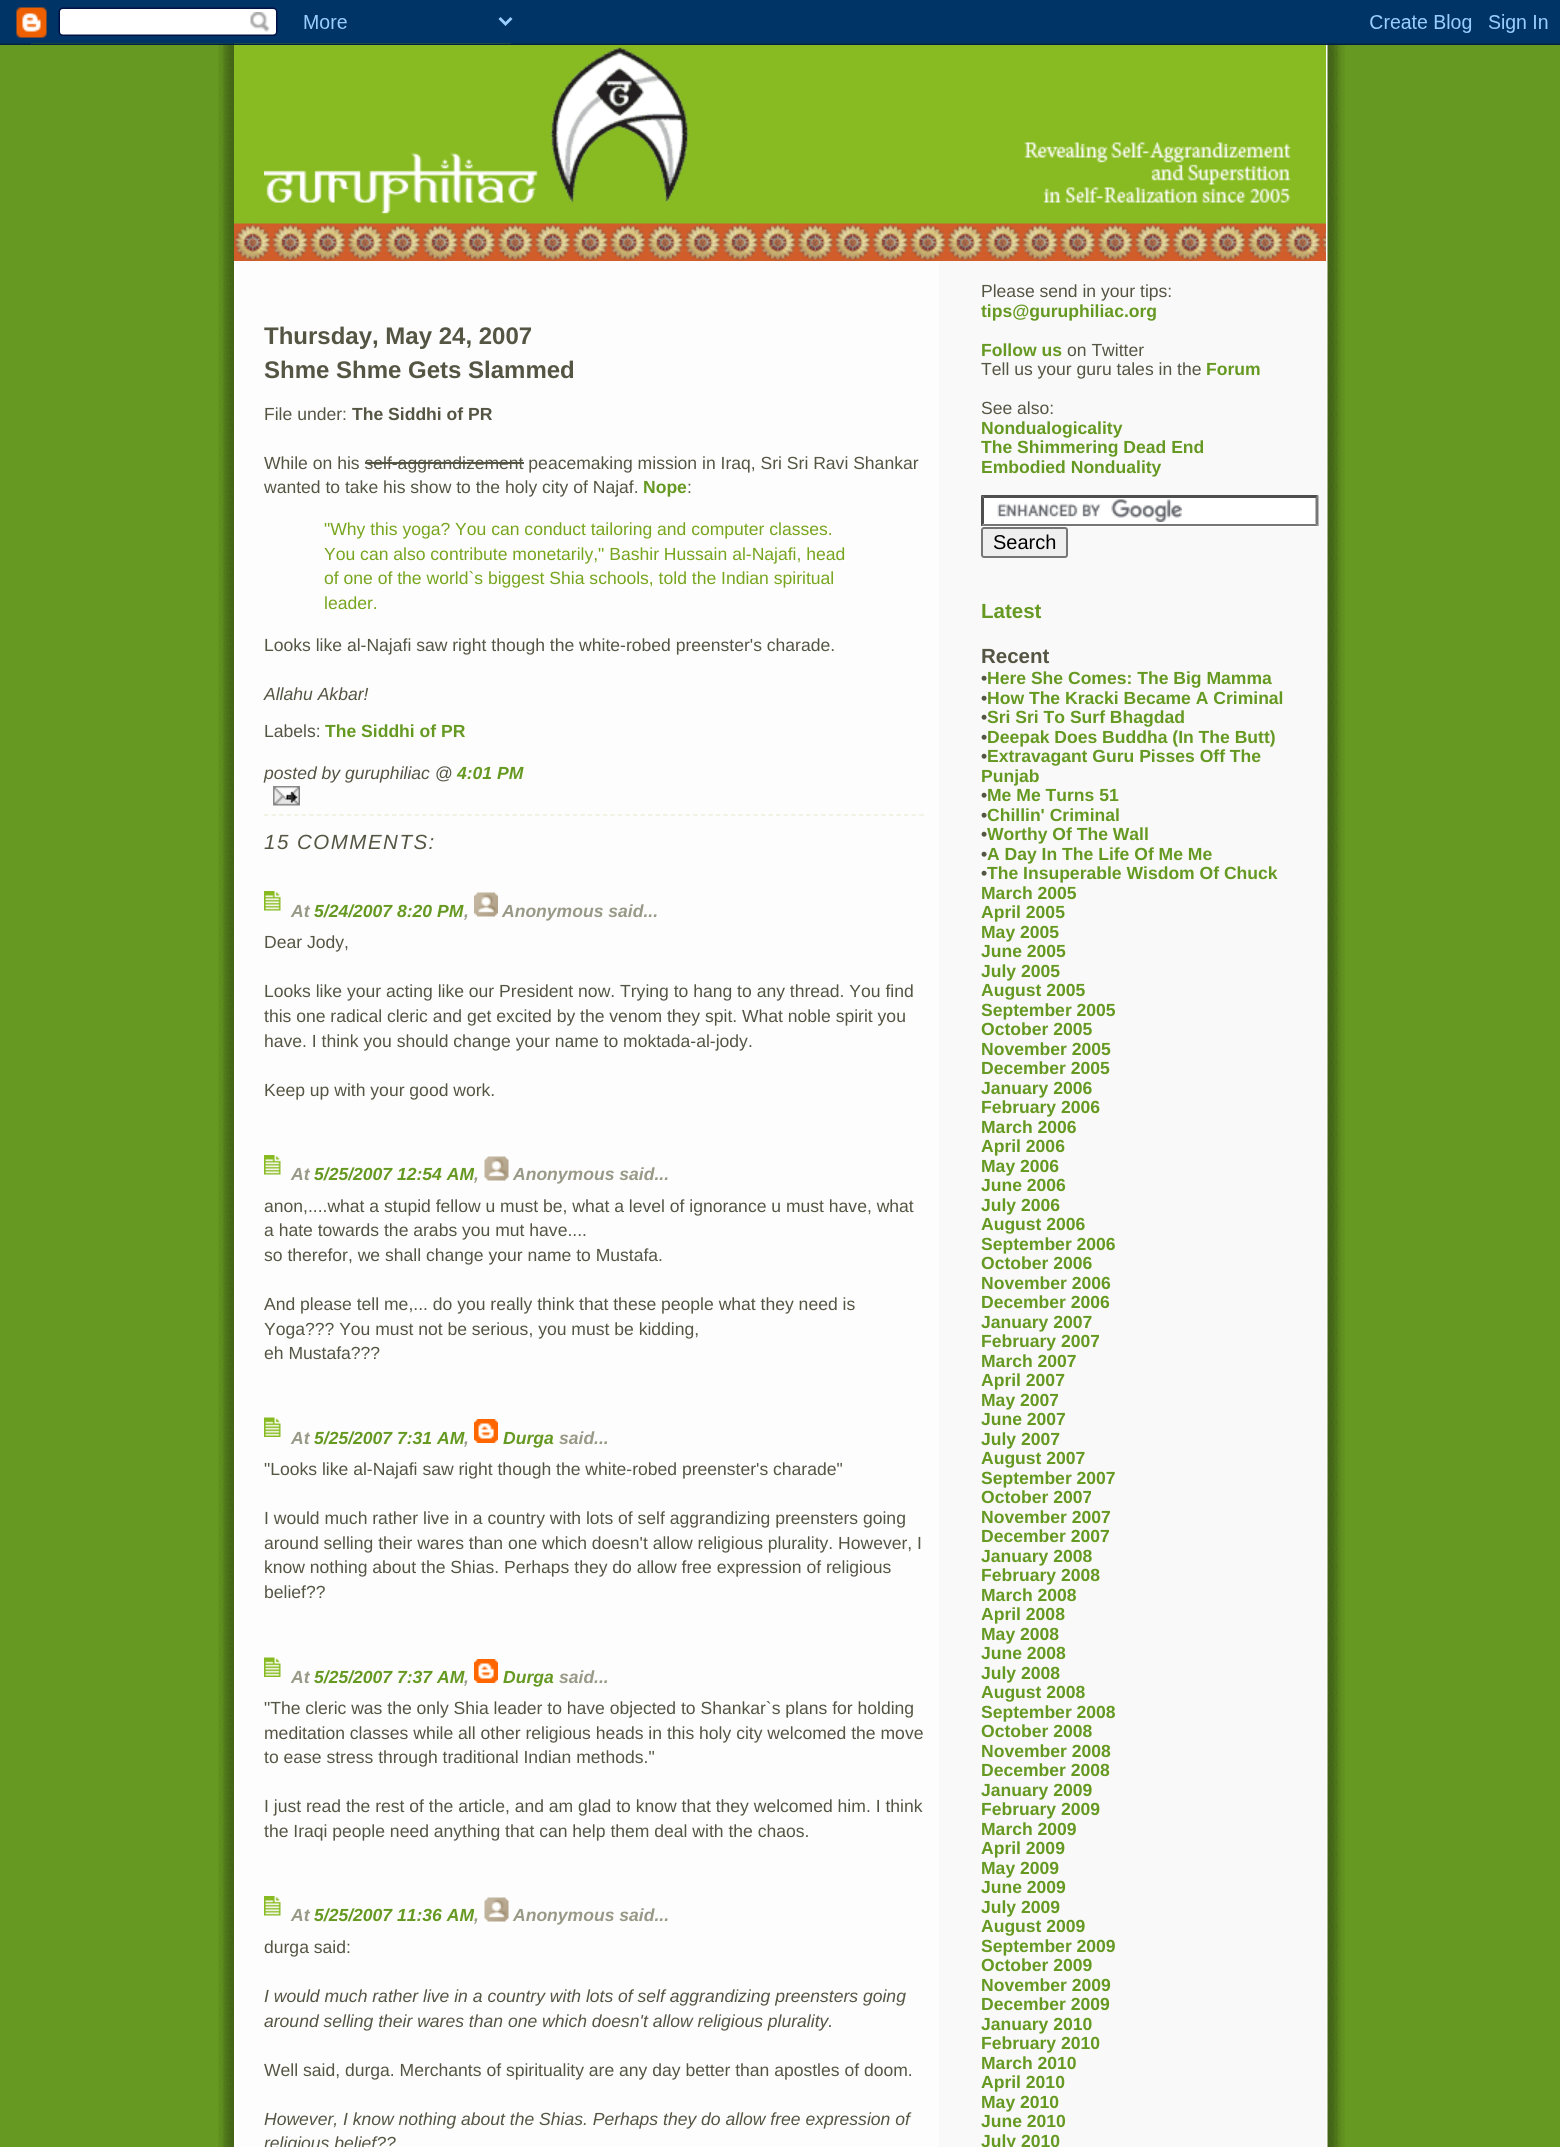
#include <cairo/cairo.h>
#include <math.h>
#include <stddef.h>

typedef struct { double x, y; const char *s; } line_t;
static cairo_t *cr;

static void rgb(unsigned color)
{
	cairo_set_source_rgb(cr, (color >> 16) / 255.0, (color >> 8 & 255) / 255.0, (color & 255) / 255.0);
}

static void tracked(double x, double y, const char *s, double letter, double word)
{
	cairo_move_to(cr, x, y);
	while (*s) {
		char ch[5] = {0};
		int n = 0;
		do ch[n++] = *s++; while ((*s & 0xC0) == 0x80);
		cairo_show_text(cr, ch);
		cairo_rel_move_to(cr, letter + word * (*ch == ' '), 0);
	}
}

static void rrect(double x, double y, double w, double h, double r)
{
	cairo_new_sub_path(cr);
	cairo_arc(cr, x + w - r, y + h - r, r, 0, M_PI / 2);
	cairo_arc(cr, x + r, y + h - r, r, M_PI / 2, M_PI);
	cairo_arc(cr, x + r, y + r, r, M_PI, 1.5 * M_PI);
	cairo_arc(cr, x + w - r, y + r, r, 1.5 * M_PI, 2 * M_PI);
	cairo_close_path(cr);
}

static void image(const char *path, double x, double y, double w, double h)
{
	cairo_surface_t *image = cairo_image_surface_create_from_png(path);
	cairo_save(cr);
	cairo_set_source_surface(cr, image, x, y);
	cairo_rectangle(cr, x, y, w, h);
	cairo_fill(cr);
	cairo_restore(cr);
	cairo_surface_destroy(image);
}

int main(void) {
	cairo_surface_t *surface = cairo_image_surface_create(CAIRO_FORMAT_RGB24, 1560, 2147);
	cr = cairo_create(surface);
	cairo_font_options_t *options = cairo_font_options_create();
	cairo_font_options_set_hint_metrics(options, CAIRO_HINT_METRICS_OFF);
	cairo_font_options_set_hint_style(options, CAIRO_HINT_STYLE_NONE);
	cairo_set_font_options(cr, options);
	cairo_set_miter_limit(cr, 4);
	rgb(0x669922);
	cairo_paint(cr);
	image("img/1.png", 218, 43, 1127, 2104);
	rgb(0x88bb22);
	cairo_rectangle(cr, 234, 43, 1092, 181);
	cairo_fill(cr);
	image("img/2.png", 0, 0, 1560, 45);
	rgb(0xffffff);
	cairo_rectangle(cr, 234, 261, 2, 1886);
	cairo_fill(cr);
	rgb(0xf9f9f9);
	cairo_rectangle(cr, 939, 261, 387, 1886);
	cairo_fill(cr);
	image("img/3.png", 234, 223, 1092, 38);
	image("img/4.png", 264, 47, 1027, 167);
	rgb(0x555544);
	cairo_rectangle(cr, 365, 462, 159, 2);
	cairo_fill(cr);
	image("img/5.png", 273, 786, 27, 20);
	cairo_new_path(cr);
	cairo_move_to(cr, 264, 815);
	cairo_line_to(cr, 924, 815);
	rgb(0xeeeedd);
	cairo_set_line_width(cr, 1.5);
	cairo_set_dash(cr, (double[]){4.5, 3.03}, 2, 0);
	cairo_stroke(cr);
	image("img/6.png", 264, 891, 17, 20);
	image("img/7.png", 474, 892, 24, 25);
	image("img/6.png", 264, 1155, 17, 20);
	image("img/8.png", 484, 1156, 25, 25);
	image("img/9.png", 264, 1417, 17, 20);
	image("img/10.png", 474, 1419, 24, 24);
	image("img/9.png", 264, 1657, 17, 20);
	image("img/10.png", 474, 1659, 24, 24);
	image("img/6.png", 264, 1896, 17, 20);
	image("img/8.png", 484, 1897, 25, 25);
	rgb(0xffffff);
	cairo_rectangle(cr, 981, 495, 338, 32);
	cairo_fill(cr);
	image("img/11.png", 997, 499, 185, 23);
	rgb(0x4f4f4f);
	cairo_new_path(cr);
	cairo_move_to(cr, 981, 495);
	cairo_line_to(cr, 1318, 495);
	cairo_line_to(cr, 1316, 498);
	cairo_line_to(cr, 984, 498);
	cairo_close_path(cr);
	cairo_fill(cr);
	rgb(0x767676);
	cairo_new_path(cr);
	cairo_move_to(cr, 1318.5, 495);
	cairo_line_to(cr, 1318.5, 526.5);
	cairo_line_to(cr, 1315.5, 523.5);
	cairo_line_to(cr, 1315.5, 498);
	cairo_close_path(cr);
	cairo_fill(cr);
	cairo_new_path(cr);
	cairo_move_to(cr, 1318, 526);
	cairo_line_to(cr, 981, 526);
	cairo_line_to(cr, 984, 524);
	cairo_line_to(cr, 1316, 524);
	cairo_close_path(cr);
	cairo_fill(cr);
	rgb(0x4f4f4f);
	cairo_new_path(cr);
	cairo_move_to(cr, 981, 526.5);
	cairo_line_to(cr, 981, 495);
	cairo_line_to(cr, 984, 498);
	cairo_line_to(cr, 984, 523.5);
	cairo_close_path(cr);
	cairo_fill(cr);
	rgb(0xefefef);
	rrect(982, 528, 85, 29, 2);
	cairo_fill_preserve(cr);
	rgb(0x767676);
	cairo_set_line_width(cr, 2);
	cairo_set_dash(cr, NULL, 0, 0);
	cairo_stroke(cr);
	cairo_select_font_face(cr, "Liberation Sans", CAIRO_FONT_SLANT_NORMAL, CAIRO_FONT_WEIGHT_BOLD);
	cairo_set_font_size(cr, 24);
	rgb(0x555544);
	cairo_move_to(cr, 264, 344);
	cairo_show_text(cr, "Thursday, May 24, 2007");
	cairo_move_to(cr, 264, 378);
	cairo_show_text(cr, "Shme Shme Gets Slammed");
	cairo_select_font_face(cr, "Liberation Sans", CAIRO_FONT_SLANT_NORMAL, CAIRO_FONT_WEIGHT_NORMAL);
	cairo_set_font_size(cr, 17.55);
	cairo_move_to(cr, 264, 420);
	cairo_show_text(cr, "File under:");
	cairo_select_font_face(cr, "Liberation Sans", CAIRO_FONT_SLANT_NORMAL, CAIRO_FONT_WEIGHT_BOLD);
	cairo_move_to(cr, 352, 420);
	cairo_show_text(cr, "The Siddhi of PR");
	cairo_select_font_face(cr, "Liberation Sans", CAIRO_FONT_SLANT_NORMAL, CAIRO_FONT_WEIGHT_NORMAL);
	cairo_move_to(cr, 264, 469);
	cairo_show_text(cr, "While on his self-aggrandizement peacemaking mission in Iraq, Sri Sri Ravi Shankar");
	cairo_move_to(cr, 264, 493);
	cairo_show_text(cr, "wanted to take his show to the holy city of Najaf.");
	cairo_select_font_face(cr, "Liberation Sans", CAIRO_FONT_SLANT_NORMAL, CAIRO_FONT_WEIGHT_BOLD);
	rgb(0x669922);
	cairo_move_to(cr, 643, 493);
	cairo_show_text(cr, "Nope");
	cairo_select_font_face(cr, "Liberation Sans", CAIRO_FONT_SLANT_NORMAL, CAIRO_FONT_WEIGHT_NORMAL);
	rgb(0x555544);
	cairo_move_to(cr, 687, 493);
	cairo_show_text(cr, ":");
	rgb(0x77a51e);
	{
		static const line_t items[] = {
			{324, 535, "\"Why this yoga? You can conduct tailoring and computer classes."},
			{324, 560, "You can also contribute monetarily,\" Bashir Hussain al-Najafi, head"},
			{324, 584, "of one of the world`s biggest Shia schools, told the Indian spiritual"},
			{324, 609, "leader."},
		};
		for (size_t i = 0; i < sizeof items / sizeof *items; i++) {
			cairo_move_to(cr, items[i].x, items[i].y);
			cairo_show_text(cr, items[i].s);
		}
	}
	rgb(0x555544);
	cairo_move_to(cr, 264, 651);
	cairo_show_text(cr, "Looks like al-Najafi saw right though the white-robed preenster's charade.");
	cairo_select_font_face(cr, "Liberation Sans", CAIRO_FONT_SLANT_ITALIC, CAIRO_FONT_WEIGHT_NORMAL);
	cairo_move_to(cr, 264, 700);
	cairo_show_text(cr, "Allahu Akbar!");
	cairo_select_font_face(cr, "Liberation Sans", CAIRO_FONT_SLANT_NORMAL, CAIRO_FONT_WEIGHT_NORMAL);
	cairo_move_to(cr, 264, 737);
	cairo_show_text(cr, "Labels:");
	cairo_select_font_face(cr, "Liberation Sans", CAIRO_FONT_SLANT_NORMAL, CAIRO_FONT_WEIGHT_BOLD);
	rgb(0x669922);
	cairo_move_to(cr, 325, 737);
	cairo_show_text(cr, "The Siddhi of PR");
	cairo_select_font_face(cr, "Liberation Sans", CAIRO_FONT_SLANT_ITALIC, CAIRO_FONT_WEIGHT_NORMAL);
	rgb(0x555544);
	cairo_move_to(cr, 264, 779);
	cairo_show_text(cr, "posted by guruphiliac @");
	cairo_select_font_face(cr, "Liberation Sans", CAIRO_FONT_SLANT_ITALIC, CAIRO_FONT_WEIGHT_BOLD);
	rgb(0x669922);
	cairo_move_to(cr, 457, 779);
	cairo_show_text(cr, "4:01 PM");
	cairo_select_font_face(cr, "Liberation Sans", CAIRO_FONT_SLANT_ITALIC, CAIRO_FONT_WEIGHT_NORMAL);
	cairo_set_font_size(cr, 20.5);
	rgb(0x555544);
	tracked(264, 849, "15 COMMENTS:", 1.5, 0);
	cairo_select_font_face(cr, "Liberation Sans", CAIRO_FONT_SLANT_ITALIC, CAIRO_FONT_WEIGHT_BOLD);
	cairo_set_font_size(cr, 17.55);
	rgb(0x999988);
	cairo_move_to(cr, 291, 917);
	cairo_show_text(cr, "At");
	rgb(0x669922);
	cairo_move_to(cr, 314, 917);
	cairo_show_text(cr, "5/24/2007 8:20 PM");
	rgb(0x999988);
	cairo_move_to(cr, 464, 917);
	cairo_show_text(cr, ",");
	cairo_move_to(cr, 502, 917);
	cairo_show_text(cr, "Anonymous said...");
	cairo_select_font_face(cr, "Liberation Sans", CAIRO_FONT_SLANT_NORMAL, CAIRO_FONT_WEIGHT_NORMAL);
	rgb(0x555544);
	{
		static const line_t items[] = {
			{264, 948, "Dear Jody,"},
			{264, 997, "Looks like your acting like our President now. Trying to hang to any thread. You find"},
			{264, 1022, "this one radical cleric and get excited by the venom they spit. What noble spirit you"},
			{264, 1047, "have. I think you should change your name to moktada-al-jody."},
			{264, 1096, "Keep up with your good work."},
		};
		for (size_t i = 0; i < sizeof items / sizeof *items; i++) {
			cairo_move_to(cr, items[i].x, items[i].y);
			cairo_show_text(cr, items[i].s);
		}
	}
	cairo_select_font_face(cr, "Liberation Sans", CAIRO_FONT_SLANT_ITALIC, CAIRO_FONT_WEIGHT_BOLD);
	rgb(0x999988);
	cairo_move_to(cr, 291, 1180);
	cairo_show_text(cr, "At");
	rgb(0x669922);
	cairo_move_to(cr, 314, 1180);
	cairo_show_text(cr, "5/25/2007 12:54 AM");
	rgb(0x999988);
	cairo_move_to(cr, 474, 1180);
	cairo_show_text(cr, ",");
	cairo_move_to(cr, 513, 1180);
	cairo_show_text(cr, "Anonymous said...");
	cairo_select_font_face(cr, "Liberation Sans", CAIRO_FONT_SLANT_NORMAL, CAIRO_FONT_WEIGHT_NORMAL);
	rgb(0x555544);
	{
		static const line_t items[] = {
			{264, 1212, "anon,....what a stupid fellow u must be, what a level of ignorance u must have, what"},
			{264, 1236, "a hate towards the arabs you mut have...."},
			{264, 1261, "so therefor, we shall change your name to Mustafa."},
			{264, 1310, "And please tell me,... do you really think that these people what they need is"},
			{264, 1335, "Yoga?\077? You must not be serious, you must be kidding,"},
			{264, 1359, "eh Mustafa?\077?"},
		};
		for (size_t i = 0; i < sizeof items / sizeof *items; i++) {
			cairo_move_to(cr, items[i].x, items[i].y);
			cairo_show_text(cr, items[i].s);
		}
	}
	cairo_select_font_face(cr, "Liberation Sans", CAIRO_FONT_SLANT_ITALIC, CAIRO_FONT_WEIGHT_BOLD);
	rgb(0x999988);
	cairo_move_to(cr, 291, 1444);
	cairo_show_text(cr, "At");
	rgb(0x669922);
	cairo_move_to(cr, 314, 1444);
	cairo_show_text(cr, "5/25/2007 7:31 AM");
	rgb(0x999988);
	cairo_move_to(cr, 464, 1444);
	cairo_show_text(cr, ",");
	rgb(0x669922);
	cairo_move_to(cr, 503, 1444);
	cairo_show_text(cr, "Durga");
	rgb(0x999988);
	cairo_move_to(cr, 559, 1444);
	cairo_show_text(cr, "said...");
	cairo_select_font_face(cr, "Liberation Sans", CAIRO_FONT_SLANT_NORMAL, CAIRO_FONT_WEIGHT_NORMAL);
	rgb(0x555544);
	{
		static const line_t items[] = {
			{264, 1475, "\"Looks like al-Najafi saw right though the white-robed preenster's charade\""},
			{264, 1524, "I would much rather live in a country with lots of self aggrandizing preensters going"},
			{264, 1549, "around selling their wares than one which doesn't allow religious plurality. However, I"},
			{264, 1573, "know nothing about the Shias. Perhaps they do allow free expression of religious"},
			{264, 1598, "belief?\077"},
		};
		for (size_t i = 0; i < sizeof items / sizeof *items; i++) {
			cairo_move_to(cr, items[i].x, items[i].y);
			cairo_show_text(cr, items[i].s);
		}
	}
	cairo_select_font_face(cr, "Liberation Sans", CAIRO_FONT_SLANT_ITALIC, CAIRO_FONT_WEIGHT_BOLD);
	rgb(0x999988);
	cairo_move_to(cr, 291, 1683);
	cairo_show_text(cr, "At");
	rgb(0x669922);
	cairo_move_to(cr, 314, 1683);
	cairo_show_text(cr, "5/25/2007 7:37 AM");
	rgb(0x999988);
	cairo_move_to(cr, 464, 1683);
	cairo_show_text(cr, ",");
	rgb(0x669922);
	cairo_move_to(cr, 503, 1683);
	cairo_show_text(cr, "Durga");
	rgb(0x999988);
	cairo_move_to(cr, 559, 1683);
	cairo_show_text(cr, "said...");
	cairo_select_font_face(cr, "Liberation Sans", CAIRO_FONT_SLANT_NORMAL, CAIRO_FONT_WEIGHT_NORMAL);
	rgb(0x555544);
	{
		static const line_t items[] = {
			{264, 1714, "\"The cleric was the only Shia leader to have objected to Shankar`s plans for holding"},
			{264, 1739, "meditation classes while all other religious heads in this holy city welcomed the move"},
			{264, 1763, "to ease stress through traditional Indian methods.\""},
			{264, 1812, "I just read the rest of the article, and am glad to know that they welcomed him. I think"},
			{264, 1837, "the Iraqi people need anything that can help them deal with the chaos."},
		};
		for (size_t i = 0; i < sizeof items / sizeof *items; i++) {
			cairo_move_to(cr, items[i].x, items[i].y);
			cairo_show_text(cr, items[i].s);
		}
	}
	cairo_select_font_face(cr, "Liberation Sans", CAIRO_FONT_SLANT_ITALIC, CAIRO_FONT_WEIGHT_BOLD);
	rgb(0x999988);
	cairo_move_to(cr, 291, 1921);
	cairo_show_text(cr, "At");
	rgb(0x669922);
	cairo_move_to(cr, 314, 1921);
	cairo_show_text(cr, "5/25/2007 11:36 AM");
	rgb(0x999988);
	cairo_move_to(cr, 474, 1921);
	cairo_show_text(cr, ",");
	cairo_move_to(cr, 513, 1921);
	cairo_show_text(cr, "Anonymous said...");
	cairo_select_font_face(cr, "Liberation Sans", CAIRO_FONT_SLANT_NORMAL, CAIRO_FONT_WEIGHT_NORMAL);
	rgb(0x555544);
	cairo_move_to(cr, 264, 1953);
	cairo_show_text(cr, "durga said:");
	cairo_select_font_face(cr, "Liberation Sans", CAIRO_FONT_SLANT_ITALIC, CAIRO_FONT_WEIGHT_NORMAL);
	cairo_move_to(cr, 264, 2002);
	cairo_show_text(cr, "I would much rather live in a country with lots of self aggrandizing preensters going");
	cairo_move_to(cr, 264, 2027);
	cairo_show_text(cr, "around selling their wares than one which doesn't allow religious plurality.");
	cairo_select_font_face(cr, "Liberation Sans", CAIRO_FONT_SLANT_NORMAL, CAIRO_FONT_WEIGHT_NORMAL);
	cairo_move_to(cr, 264, 2076);
	cairo_show_text(cr, "Well said, durga. Merchants of spirituality are any day better than apostles of doom.");
	cairo_select_font_face(cr, "Liberation Sans", CAIRO_FONT_SLANT_ITALIC, CAIRO_FONT_WEIGHT_NORMAL);
	cairo_move_to(cr, 264, 2125);
	cairo_show_text(cr, "However, I know nothing about the Shias. Perhaps they do allow free expression of");
	cairo_move_to(cr, 264, 2149);
	cairo_show_text(cr, "religious belief?\077");
	cairo_select_font_face(cr, "Liberation Sans", CAIRO_FONT_SLANT_NORMAL, CAIRO_FONT_WEIGHT_NORMAL);
	cairo_move_to(cr, 981, 297);
	cairo_show_text(cr, "Please send in your tips:");
	cairo_select_font_face(cr, "Liberation Sans", CAIRO_FONT_SLANT_NORMAL, CAIRO_FONT_WEIGHT_BOLD);
	rgb(0x669922);
	cairo_move_to(cr, 981, 317);
	cairo_show_text(cr, "tips@guruphiliac.org");
	cairo_move_to(cr, 981, 356);
	cairo_show_text(cr, "Follow us");
	cairo_select_font_face(cr, "Liberation Sans", CAIRO_FONT_SLANT_NORMAL, CAIRO_FONT_WEIGHT_NORMAL);
	rgb(0x555544);
	cairo_move_to(cr, 1067, 356);
	cairo_show_text(cr, "on Twitter");
	cairo_move_to(cr, 981, 375);
	cairo_show_text(cr, "Tell us your guru tales in the");
	cairo_select_font_face(cr, "Liberation Sans", CAIRO_FONT_SLANT_NORMAL, CAIRO_FONT_WEIGHT_BOLD);
	rgb(0x669922);
	cairo_move_to(cr, 1206, 375);
	cairo_show_text(cr, "Forum");
	cairo_select_font_face(cr, "Liberation Sans", CAIRO_FONT_SLANT_NORMAL, CAIRO_FONT_WEIGHT_NORMAL);
	rgb(0x555544);
	cairo_move_to(cr, 981, 414);
	cairo_show_text(cr, "See also:");
	cairo_select_font_face(cr, "Liberation Sans", CAIRO_FONT_SLANT_NORMAL, CAIRO_FONT_WEIGHT_BOLD);
	rgb(0x669922);
	{
		static const line_t items[] = {
			{981, 434, "Nondualogicality"},
			{981, 453, "The Shimmering Dead End"},
			{981, 473, "Embodied Nonduality"},
		};
		for (size_t i = 0; i < sizeof items / sizeof *items; i++) {
			cairo_move_to(cr, items[i].x, items[i].y);
			cairo_show_text(cr, items[i].s);
		}
	}
	cairo_select_font_face(cr, "Liberation Sans", CAIRO_FONT_SLANT_NORMAL, CAIRO_FONT_WEIGHT_NORMAL);
	cairo_set_font_size(cr, 20);
	rgb(0x000000);
	cairo_move_to(cr, 993, 549);
	cairo_show_text(cr, "Search");
	cairo_select_font_face(cr, "Liberation Sans", CAIRO_FONT_SLANT_NORMAL, CAIRO_FONT_WEIGHT_BOLD);
	cairo_set_font_size(cr, 20.5);
	rgb(0x669922);
	cairo_move_to(cr, 981, 618);
	cairo_show_text(cr, "Latest");
	rgb(0x555544);
	cairo_move_to(cr, 981, 663);
	cairo_show_text(cr, "Recent");
	cairo_set_font_size(cr, 17.55);
	cairo_move_to(cr, 981, 684);
	cairo_show_text(cr, "•");
	rgb(0x669922);
	cairo_move_to(cr, 987, 684);
	cairo_show_text(cr, "Here She Comes: The Big Mamma");
	rgb(0x555544);
	cairo_move_to(cr, 981, 704);
	cairo_show_text(cr, "•");
	rgb(0x669922);
	cairo_move_to(cr, 987, 704);
	cairo_show_text(cr, "How The Kracki Became A Criminal");
	rgb(0x555544);
	cairo_move_to(cr, 981, 723);
	cairo_show_text(cr, "•");
	rgb(0x669922);
	cairo_move_to(cr, 987, 723);
	cairo_show_text(cr, "Sri Sri To Surf Bhagdad");
	rgb(0x555544);
	cairo_move_to(cr, 981, 743);
	cairo_show_text(cr, "•");
	rgb(0x669922);
	cairo_move_to(cr, 987, 743);
	cairo_show_text(cr, "Deepak Does Buddha (In The Butt)");
	rgb(0x555544);
	cairo_move_to(cr, 981, 762);
	cairo_show_text(cr, "•");
	rgb(0x669922);
	cairo_move_to(cr, 987, 762);
	cairo_show_text(cr, "Extravagant Guru Pisses Off The");
	cairo_move_to(cr, 981, 782);
	cairo_show_text(cr, "Punjab");
	rgb(0x555544);
	cairo_move_to(cr, 981, 801);
	cairo_show_text(cr, "•");
	rgb(0x669922);
	cairo_move_to(cr, 987, 801);
	cairo_show_text(cr, "Me Me Turns 51");
	rgb(0x555544);
	cairo_move_to(cr, 981, 821);
	cairo_show_text(cr, "•");
	rgb(0x669922);
	cairo_move_to(cr, 987, 821);
	cairo_show_text(cr, "Chillin' Criminal");
	rgb(0x555544);
	cairo_move_to(cr, 981, 840);
	cairo_show_text(cr, "•");
	rgb(0x669922);
	cairo_move_to(cr, 987, 840);
	cairo_show_text(cr, "Worthy Of The Wall");
	rgb(0x555544);
	cairo_move_to(cr, 981, 860);
	cairo_show_text(cr, "•");
	rgb(0x669922);
	cairo_move_to(cr, 987, 860);
	cairo_show_text(cr, "A Day In The Life Of Me Me");
	rgb(0x555544);
	cairo_move_to(cr, 981, 879);
	cairo_show_text(cr, "•");
	rgb(0x669922);
	{
		static const line_t items[] = {
			{987, 879, "The Insuperable Wisdom Of Chuck"},
			{981, 899, "March 2005"},
			{981, 918, "April 2005"},
			{981, 938, "May 2005"},
			{981, 957, "June 2005"},
			{981, 977, "July 2005"},
			{981, 996, "August 2005"},
			{981, 1016, "September 2005"},
			{981, 1035, "October 2005"},
			{981, 1055, "November 2005"},
			{981, 1074, "December 2005"},
			{981, 1094, "January 2006"},
			{981, 1113, "February 2006"},
			{981, 1133, "March 2006"},
			{981, 1152, "April 2006"},
			{981, 1172, "May 2006"},
			{981, 1191, "June 2006"},
			{981, 1211, "July 2006"},
			{981, 1230, "August 2006"},
			{981, 1250, "September 2006"},
			{981, 1269, "October 2006"},
			{981, 1289, "November 2006"},
			{981, 1308, "December 2006"},
			{981, 1328, "January 2007"},
			{981, 1347, "February 2007"},
			{981, 1367, "March 2007"},
			{981, 1386, "April 2007"},
			{981, 1406, "May 2007"},
			{981, 1425, "June 2007"},
			{981, 1445, "July 2007"},
			{981, 1464, "August 2007"},
			{981, 1484, "September 2007"},
			{981, 1503, "October 2007"},
			{981, 1523, "November 2007"},
			{981, 1542, "December 2007"},
			{981, 1562, "January 2008"},
			{981, 1581, "February 2008"},
			{981, 1601, "March 2008"},
			{981, 1620, "April 2008"},
			{981, 1640, "May 2008"},
			{981, 1659, "June 2008"},
			{981, 1679, "July 2008"},
			{981, 1698, "August 2008"},
			{981, 1718, "September 2008"},
			{981, 1737, "October 2008"},
			{981, 1757, "November 2008"},
			{981, 1776, "December 2008"},
			{981, 1796, "January 2009"},
			{981, 1815, "February 2009"},
			{981, 1835, "March 2009"},
			{981, 1854, "April 2009"},
			{981, 1874, "May 2009"},
			{981, 1893, "June 2009"},
			{981, 1913, "July 2009"},
			{981, 1932, "August 2009"},
			{981, 1952, "September 2009"},
			{981, 1971, "October 2009"},
			{981, 1991, "November 2009"},
			{981, 2010, "December 2009"},
			{981, 2030, "January 2010"},
			{981, 2049, "February 2010"},
			{981, 2069, "March 2010"},
			{981, 2088, "April 2010"},
			{981, 2108, "May 2010"},
			{981, 2127, "June 2010"},
			{981, 2147, "July 2010"},
		};
		for (size_t i = 0; i < sizeof items / sizeof *items; i++) {
			cairo_move_to(cr, items[i].x, items[i].y);
			cairo_show_text(cr, items[i].s);
		}
	}
	cairo_surface_write_to_png(surface, "page.png");
	cairo_font_options_destroy(options);
	cairo_destroy(cr);
	cairo_surface_destroy(surface);
	return 0;
}
